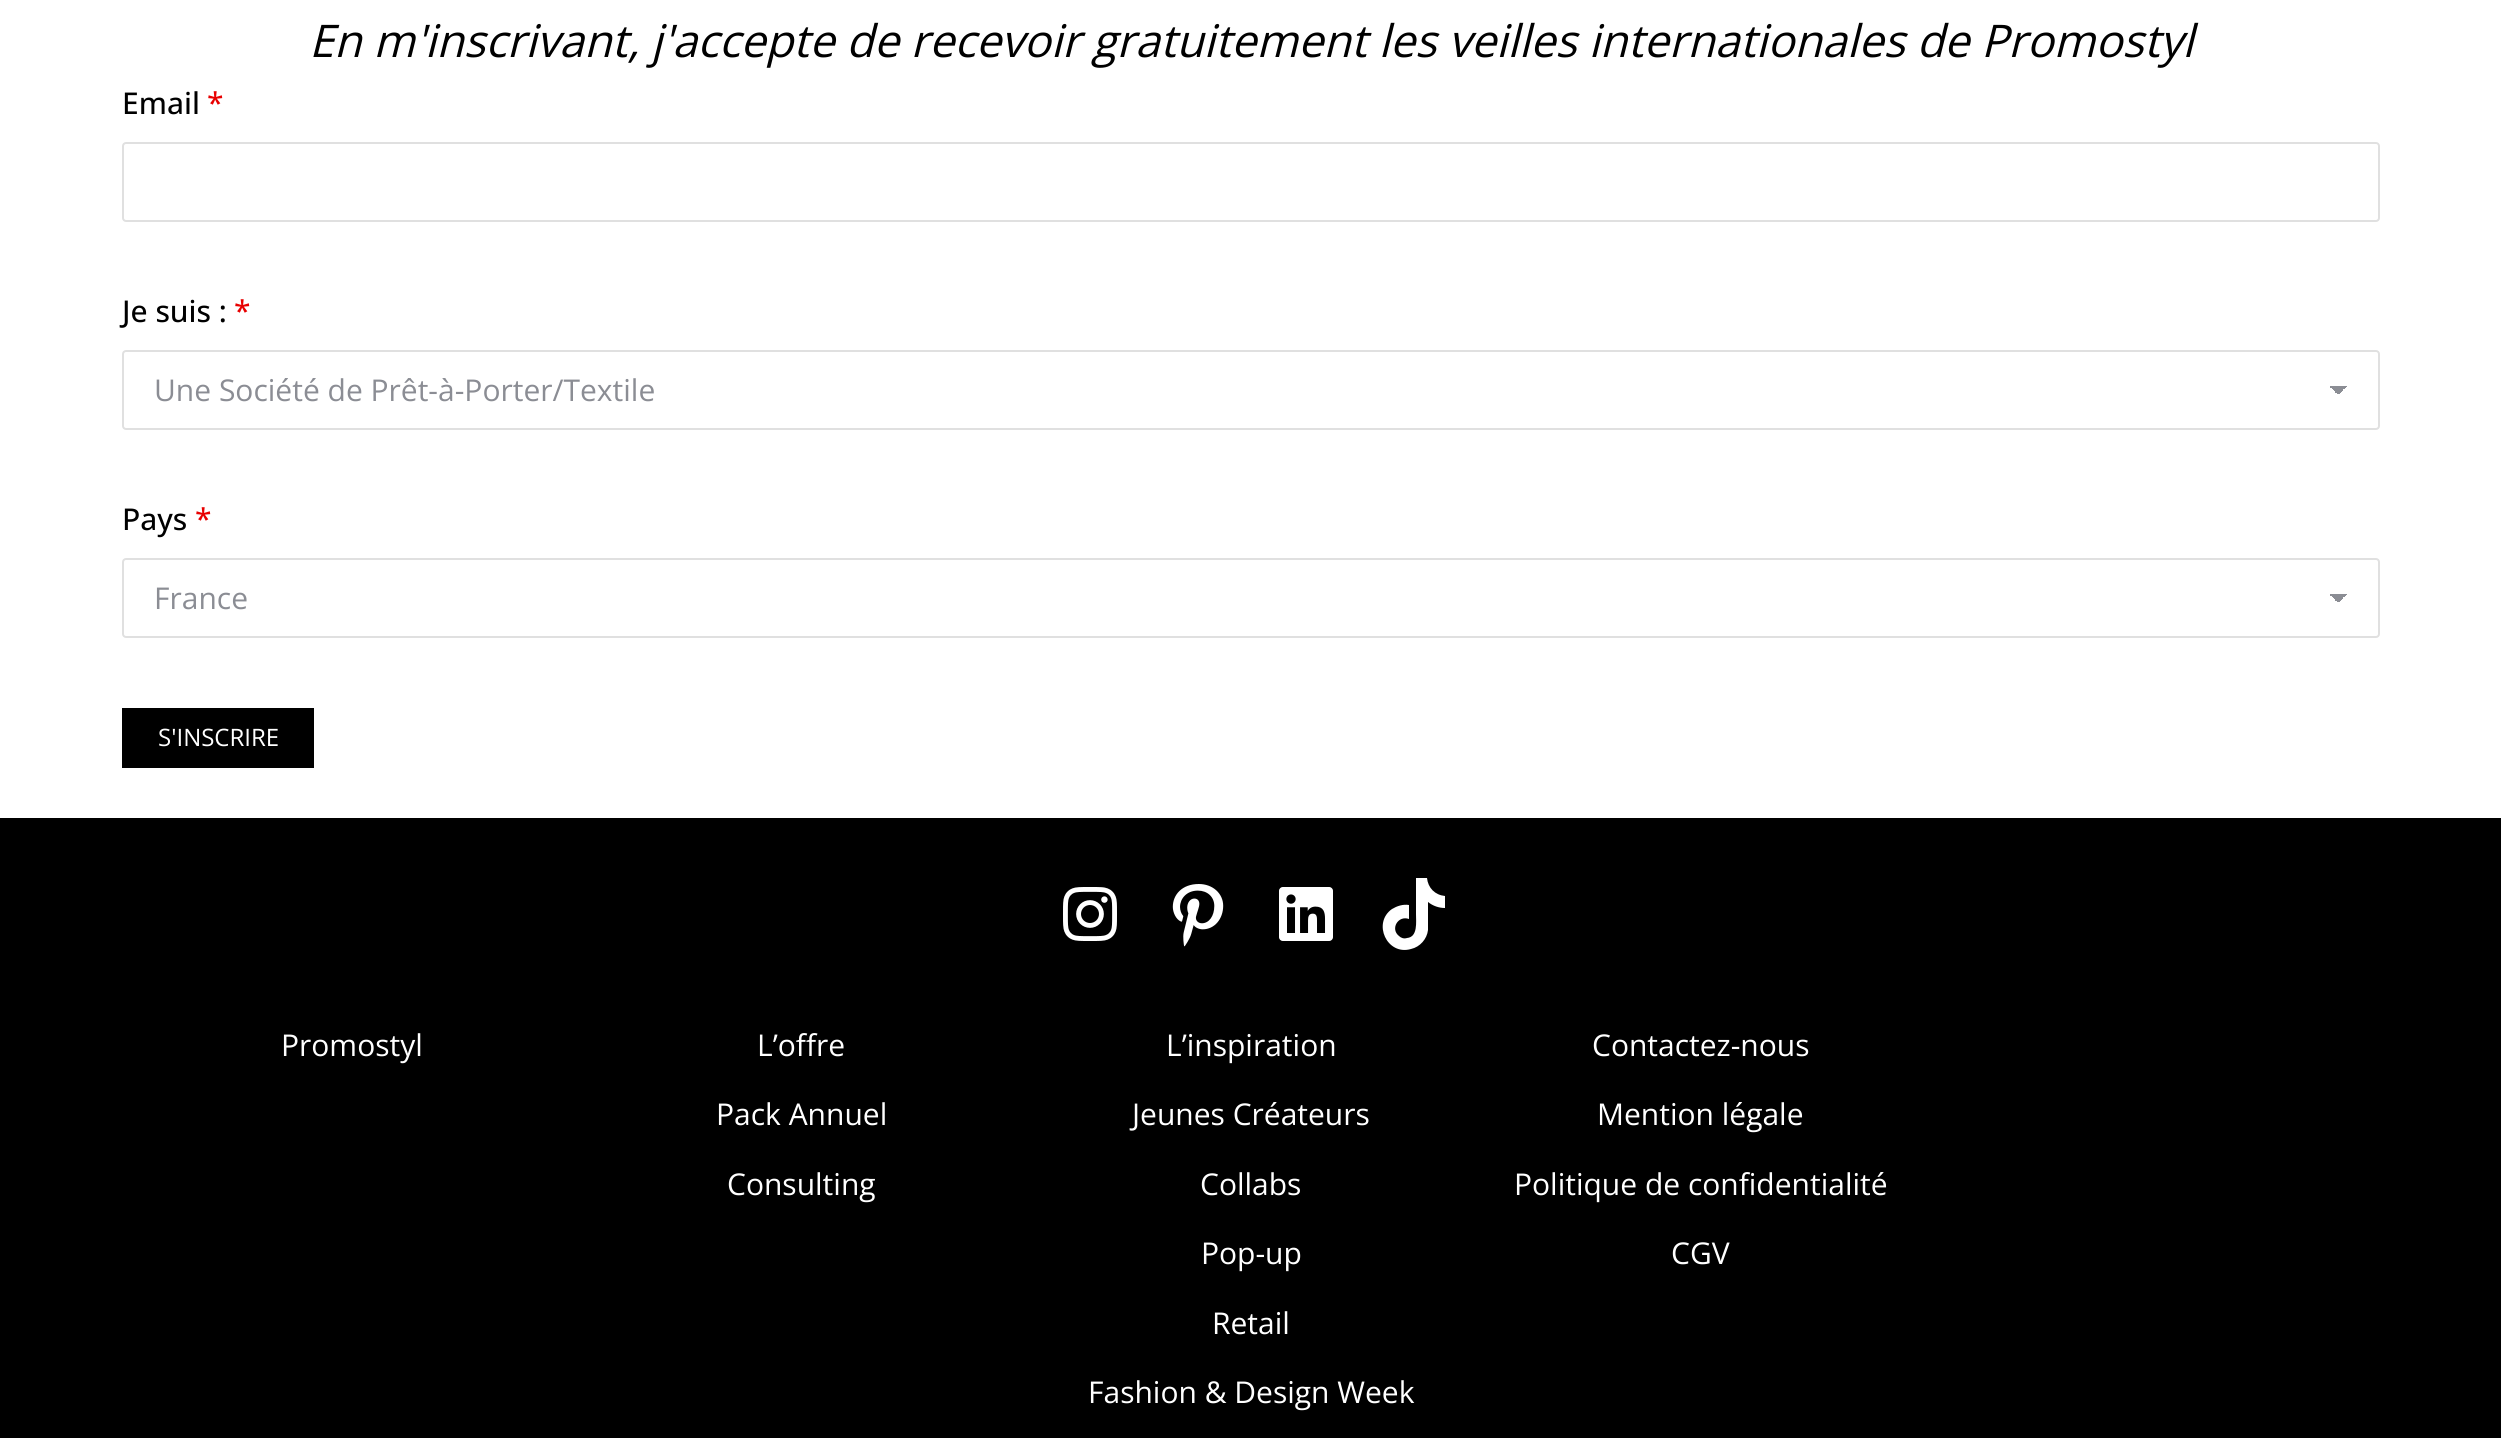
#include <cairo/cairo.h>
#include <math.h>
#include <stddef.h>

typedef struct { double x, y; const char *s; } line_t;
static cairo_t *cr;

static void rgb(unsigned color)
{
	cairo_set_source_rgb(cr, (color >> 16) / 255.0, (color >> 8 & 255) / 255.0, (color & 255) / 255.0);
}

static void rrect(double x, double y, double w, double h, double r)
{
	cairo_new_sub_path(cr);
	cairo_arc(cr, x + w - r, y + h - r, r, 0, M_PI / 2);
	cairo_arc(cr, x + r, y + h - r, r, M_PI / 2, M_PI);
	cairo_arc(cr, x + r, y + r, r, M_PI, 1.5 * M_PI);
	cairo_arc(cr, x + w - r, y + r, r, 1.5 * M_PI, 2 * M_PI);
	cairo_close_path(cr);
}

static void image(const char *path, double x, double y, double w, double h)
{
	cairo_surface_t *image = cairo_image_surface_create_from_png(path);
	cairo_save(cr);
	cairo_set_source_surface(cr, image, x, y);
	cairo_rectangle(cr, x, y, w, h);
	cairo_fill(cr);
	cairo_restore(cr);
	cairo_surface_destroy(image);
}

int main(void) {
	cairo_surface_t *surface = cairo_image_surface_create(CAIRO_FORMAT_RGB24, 2501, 1438);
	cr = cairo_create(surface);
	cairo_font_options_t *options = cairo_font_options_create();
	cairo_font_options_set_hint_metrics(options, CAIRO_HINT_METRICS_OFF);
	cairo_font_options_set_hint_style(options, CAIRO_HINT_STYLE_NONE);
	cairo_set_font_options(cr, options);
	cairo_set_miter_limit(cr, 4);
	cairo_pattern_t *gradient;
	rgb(0x000000);
	cairo_paint(cr);
	rgb(0xffffff);
	cairo_rectangle(cr, 0, 0, 2501, 818);
	cairo_fill(cr);
	rrect(123, 143, 2256, 78, 3);
	rgb(0xe0e0e0);
	cairo_stroke(cr);
	gradient = cairo_pattern_create_linear(2338, 385, 2348, 395);
	cairo_pattern_add_color_stop_rgba(gradient, 0.5, 0.545, 0.553, 0.58, 1);
	cairo_pattern_add_color_stop_rgba(gradient, 0.5, 1, 1, 1, 1);
	cairo_set_source(cr, gradient);
	cairo_pattern_destroy(gradient);
	cairo_rectangle(cr, 2338, 386, 9, 8);
	cairo_fill(cr);
	gradient = cairo_pattern_create_linear(2328, 395, 2338, 385);
	cairo_pattern_add_color_stop_rgba(gradient, 0.5, 1, 1, 1, 1);
	cairo_pattern_add_color_stop_rgba(gradient, 0.5, 0.545, 0.553, 0.58, 1);
	cairo_set_source(cr, gradient);
	cairo_pattern_destroy(gradient);
	cairo_rectangle(cr, 2330, 386, 8, 8);
	cairo_fill(cr);
	rrect(123, 351, 2256, 78, 3);
	rgb(0xe0e0e0);
	cairo_stroke(cr);
	gradient = cairo_pattern_create_linear(2338, 593, 2348, 603);
	cairo_pattern_add_color_stop_rgba(gradient, 0.5, 0.545, 0.553, 0.58, 1);
	cairo_pattern_add_color_stop_rgba(gradient, 0.5, 1, 1, 1, 1);
	cairo_set_source(cr, gradient);
	cairo_pattern_destroy(gradient);
	cairo_rectangle(cr, 2338, 594, 9, 8);
	cairo_fill(cr);
	gradient = cairo_pattern_create_linear(2328, 603, 2338, 593);
	cairo_pattern_add_color_stop_rgba(gradient, 0.5, 1, 1, 1, 1);
	cairo_pattern_add_color_stop_rgba(gradient, 0.5, 0.545, 0.553, 0.58, 1);
	cairo_set_source(cr, gradient);
	cairo_pattern_destroy(gradient);
	cairo_rectangle(cr, 2330, 594, 8, 8);
	cairo_fill(cr);
	rrect(123, 559, 2256, 78, 3);
	rgb(0xe0e0e0);
	cairo_stroke(cr);
	rgb(0x000000);
	cairo_rectangle(cr, 122, 708, 192, 60);
	cairo_fill(cr);
	image("img/1.png", 1063, 887, 54, 54);
	image("img/2.png", 1172, 884, 52, 63);
	image("img/3.png", 1279, 887, 54, 54);
	rgb(0xffffff);
	cairo_new_path(cr);
	cairo_move_to(cr, 1416, 878);
	cairo_line_to(cr, 1427, 878);
	cairo_curve_to(cr, 1428, 888, 1435, 895, 1445, 896);
	cairo_line_to(cr, 1445, 908);
	cairo_curve_to(cr, 1439, 908, 1433, 906, 1428, 902);
	cairo_line_to(cr, 1428, 930);
	cairo_curve_to(cr, 1427, 939, 1420, 947, 1411, 949);
	cairo_curve_to(cr, 1387, 956, 1372, 923, 1392, 909);
	cairo_curve_to(cr, 1397, 906, 1403, 904, 1409, 905);
	cairo_line_to(cr, 1409, 919);
	cairo_curve_to(cr, 1398, 915, 1390, 929, 1399, 936);
	cairo_curve_to(cr, 1401, 938, 1404, 939, 1407, 938);
	cairo_curve_to(cr, 1418, 937, 1416, 922, 1416, 914);
	cairo_close_path(cr);
	cairo_fill(cr);
	cairo_select_font_face(cr, "Open Sans", CAIRO_FONT_SLANT_ITALIC, CAIRO_FONT_WEIGHT_NORMAL);
	cairo_set_font_size(cr, 45);
	rgb(0x000000);
	cairo_move_to(cr, 309, 57);
	cairo_show_text(cr, "En m'inscrivant, j'accepte de recevoir gratuitement les veilles internationales de Promostyl");
	cairo_select_font_face(cr, "Open Sans Medium", CAIRO_FONT_SLANT_NORMAL, CAIRO_FONT_WEIGHT_NORMAL);
	cairo_set_font_size(cr, 30);
	cairo_move_to(cr, 122, 114);
	cairo_show_text(cr, "Email");
	rgb(0xe80000);
	cairo_move_to(cr, 207, 114);
	cairo_show_text(cr, "*");
	rgb(0x000000);
	cairo_move_to(cr, 122, 322);
	cairo_show_text(cr, "Je suis :");
	rgb(0xe80000);
	cairo_move_to(cr, 234, 322);
	cairo_show_text(cr, "*");
	cairo_select_font_face(cr, "Open Sans", CAIRO_FONT_SLANT_NORMAL, CAIRO_FONT_WEIGHT_NORMAL);
	rgb(0x8b8d94);
	cairo_move_to(cr, 154, 401);
	cairo_show_text(cr, "Une Société de Prêt-à-Porter/Textile");
	cairo_select_font_face(cr, "Open Sans Medium", CAIRO_FONT_SLANT_NORMAL, CAIRO_FONT_WEIGHT_NORMAL);
	rgb(0x000000);
	cairo_move_to(cr, 122, 530);
	cairo_show_text(cr, "Pays");
	rgb(0xe80000);
	cairo_move_to(cr, 195, 530);
	cairo_show_text(cr, "*");
	cairo_select_font_face(cr, "Open Sans", CAIRO_FONT_SLANT_NORMAL, CAIRO_FONT_WEIGHT_NORMAL);
	rgb(0x8b8d94);
	cairo_move_to(cr, 154, 609);
	cairo_show_text(cr, "France");
	cairo_set_font_size(cr, 24);
	rgb(0xffffff);
	cairo_move_to(cr, 158, 746);
	cairo_show_text(cr, "S'INSCRIRE");
	cairo_set_font_size(cr, 30);
	{
		static const line_t items[] = {
			{281, 1056, "Promostyl"},
			{757, 1056, "L’offre"},
			{716, 1125, "Pack Annuel"},
			{727, 1195, "Consulting"},
			{1166, 1056, "L’inspiration"},
			{1132, 1125, "Jeunes Créateurs"},
			{1200, 1195, "Collabs"},
			{1201, 1264, "Pop-up"},
			{1212, 1334, "Retail"},
			{1088, 1403, "Fashion & Design Week"},
			{1592, 1056, "Contactez-nous"},
			{1597, 1125, "Mention légale"},
			{1514, 1195, "Politique de confidentialité"},
			{1671, 1264, "CGV"},
		};
		for (size_t i = 0; i < sizeof items / sizeof *items; i++) {
			cairo_move_to(cr, items[i].x, items[i].y);
			cairo_show_text(cr, items[i].s);
		}
	}
	cairo_surface_write_to_png(surface, "page.png");
	cairo_font_options_destroy(options);
	cairo_destroy(cr);
	cairo_surface_destroy(surface);
	return 0;
}
